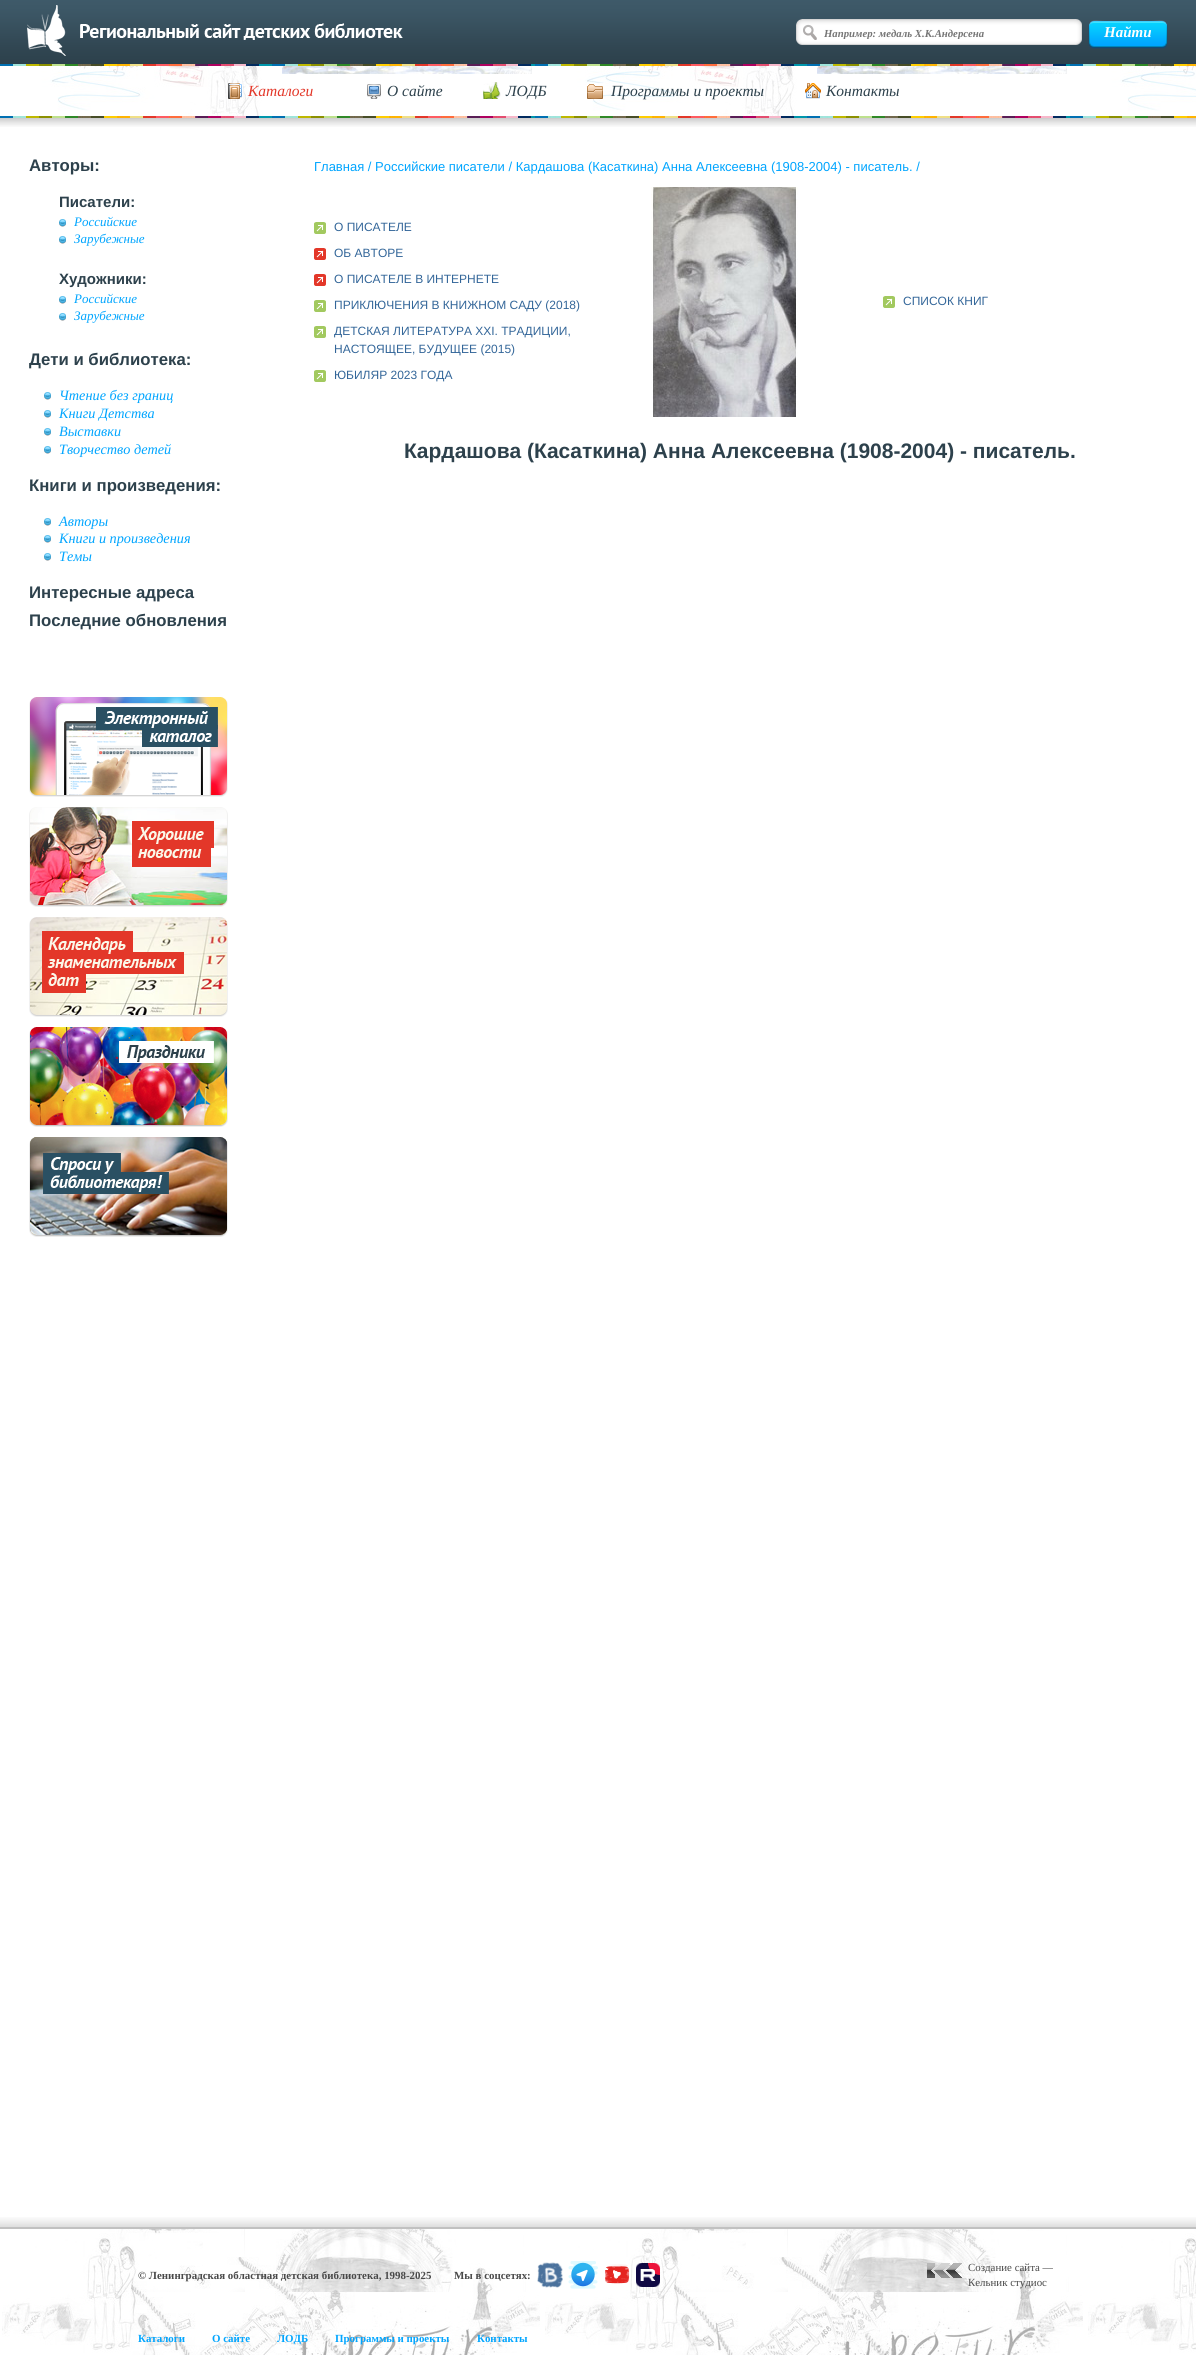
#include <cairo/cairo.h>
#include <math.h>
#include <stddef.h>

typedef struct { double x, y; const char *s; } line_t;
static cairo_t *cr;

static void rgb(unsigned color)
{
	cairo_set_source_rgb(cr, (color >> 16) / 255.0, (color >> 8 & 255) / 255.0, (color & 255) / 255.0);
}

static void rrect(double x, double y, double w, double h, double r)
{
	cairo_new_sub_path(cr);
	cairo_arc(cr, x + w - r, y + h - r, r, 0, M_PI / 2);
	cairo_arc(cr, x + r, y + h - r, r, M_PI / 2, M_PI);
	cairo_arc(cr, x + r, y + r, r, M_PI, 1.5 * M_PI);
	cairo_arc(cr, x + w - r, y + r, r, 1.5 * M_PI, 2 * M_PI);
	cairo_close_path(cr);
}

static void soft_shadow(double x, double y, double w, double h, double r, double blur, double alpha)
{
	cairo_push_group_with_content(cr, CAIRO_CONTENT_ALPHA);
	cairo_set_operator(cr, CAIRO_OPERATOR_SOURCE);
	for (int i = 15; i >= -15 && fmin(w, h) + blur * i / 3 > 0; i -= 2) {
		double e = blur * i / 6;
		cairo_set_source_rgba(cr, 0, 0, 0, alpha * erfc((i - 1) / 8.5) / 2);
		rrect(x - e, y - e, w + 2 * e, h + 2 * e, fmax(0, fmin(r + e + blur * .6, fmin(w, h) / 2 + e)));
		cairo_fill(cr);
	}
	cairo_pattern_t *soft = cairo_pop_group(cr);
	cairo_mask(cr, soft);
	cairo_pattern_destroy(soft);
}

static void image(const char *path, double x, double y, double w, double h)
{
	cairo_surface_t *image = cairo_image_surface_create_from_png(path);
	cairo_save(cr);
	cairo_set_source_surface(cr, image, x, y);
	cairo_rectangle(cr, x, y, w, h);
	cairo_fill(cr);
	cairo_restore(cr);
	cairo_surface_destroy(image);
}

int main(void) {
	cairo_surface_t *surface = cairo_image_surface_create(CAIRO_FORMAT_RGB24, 1196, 2355);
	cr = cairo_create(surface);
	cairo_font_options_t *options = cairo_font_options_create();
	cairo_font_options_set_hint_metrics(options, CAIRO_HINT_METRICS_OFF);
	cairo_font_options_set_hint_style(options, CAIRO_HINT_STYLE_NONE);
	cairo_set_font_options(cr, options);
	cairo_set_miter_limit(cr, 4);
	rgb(0xffffff);
	cairo_paint(cr);
	image("img/1.png", 0, 0, 1196, 64);
	image("img/2.png", 27, 5, 376, 51);
	image("img/3.png", 796, 19, 286, 26);
	rgb(0x004b85);
	soft_shadow(1089, 22, 78, 26, 4, 0.5, 0.75);
	image("img/4.png", 1089, 21, 78, 26);
	cairo_set_source_rgba(cr, 1, 1, 1, 0.22);
	cairo_new_path(cr);
	cairo_move_to(cr, 1093, 23);
	cairo_line_to(cr, 1163, 23);
	cairo_curve_to(cr, 1165, 23, 1167, 25, 1167, 27);
	cairo_curve_to(cr, 1167, 18, 1159, 21, 1151, 21);
	cairo_line_to(cr, 1105, 21);
	cairo_curve_to(cr, 1097, 21, 1089, 18, 1089, 27);
	cairo_curve_to(cr, 1089, 25, 1091, 23, 1093, 23);
	cairo_close_path(cr);
	cairo_fill(cr);
	image("img/5.png", 0, 64, 1196, 63);
	image("img/6.png", 228, 83, 14, 16);
	image("img/7.png", 367, 84, 14, 15);
	image("img/8.png", 483, 82, 18, 17);
	image("img/9.png", 587, 84, 16, 15);
	image("img/10.png", 805, 83, 16, 16);
	image("img/11.png", 59, 219, 7, 8);
	image("img/11.png", 59, 236, 7, 8);
	image("img/11.png", 59, 296, 7, 8);
	image("img/11.png", 59, 313, 7, 8);
	image("img/11.png", 44, 392, 7, 8);
	image("img/11.png", 44, 410, 7, 8);
	image("img/11.png", 44, 428, 7, 8);
	image("img/11.png", 44, 446, 7, 8);
	image("img/11.png", 44, 518, 7, 8);
	image("img/11.png", 44, 535, 7, 8);
	image("img/11.png", 44, 553, 7, 8);
	image("img/12.png", 29, 697, 199, 100);
	image("img/13.png", 29, 807, 199, 100);
	image("img/14.png", 29, 917, 199, 100);
	image("img/15.png", 29, 1027, 199, 100);
	image("img/16.png", 29, 1137, 199, 100);
	image("img/17.png", 314, 222, 12, 12);
	image("img/18.png", 314, 248, 12, 12);
	image("img/18.png", 314, 274, 12, 12);
	image("img/17.png", 314, 300, 12, 12);
	image("img/17.png", 314, 326, 12, 12);
	image("img/17.png", 314, 370, 12, 12);
	image("img/19.png", 651, 187, 147, 230);
	image("img/17.png", 883, 296, 12, 12);
	image("img/20.png", 0, 2217, 1196, 138);
	image("img/21.png", 537, 2262, 26, 26);
	image("img/22.png", 568, 2261, 30, 28);
	image("img/23.png", 605, 2264, 24, 20);
	image("img/24.png", 636, 2263, 24, 24);
	image("img/25.png", 927, 2263, 35, 15);
	cairo_save(cr);
	cairo_rectangle(cr, 824, 27, 286, 12);
	cairo_clip(cr);
	cairo_select_font_face(cr, "Liberation Serif", CAIRO_FONT_SLANT_ITALIC, CAIRO_FONT_WEIGHT_BOLD);
	cairo_set_font_size(cr, 10.75);
	rgb(0x757575);
	cairo_move_to(cr, 824, 37);
	cairo_show_text(cr, "Например: медаль Х.К.Андерсена");
	cairo_restore(cr);
	cairo_select_font_face(cr, "Liberation Serif", CAIRO_FONT_SLANT_ITALIC, CAIRO_FONT_WEIGHT_BOLD);
	cairo_set_font_size(cr, 15);
	rgb(0xffffff);
	cairo_move_to(cr, 1104, 37);
	cairo_show_text(cr, "Найти");
	cairo_select_font_face(cr, "Liberation Serif", CAIRO_FONT_SLANT_ITALIC, CAIRO_FONT_WEIGHT_NORMAL);
	cairo_set_font_size(cr, 15.5);
	rgb(0xe33729);
	cairo_move_to(cr, 248, 96);
	cairo_show_text(cr, "Каталоги");
	rgb(0x2d414c);
	{
		static const line_t items[] = {
			{387, 96, "О сайте"},
			{506, 96, "ЛОДБ"},
			{611, 96, "Программы и проекты"},
			{826, 96, "Контакты"},
		};
		for (size_t i = 0; i < sizeof items / sizeof *items; i++) {
			cairo_move_to(cr, items[i].x, items[i].y);
			cairo_show_text(cr, items[i].s);
		}
	}
	cairo_select_font_face(cr, "Liberation Sans", CAIRO_FONT_SLANT_NORMAL, CAIRO_FONT_WEIGHT_BOLD);
	cairo_set_font_size(cr, 16.75);
	cairo_move_to(cr, 29, 171);
	cairo_show_text(cr, "Авторы:");
	cairo_set_font_size(cr, 15);
	cairo_move_to(cr, 59, 207);
	cairo_show_text(cr, "Писатели:");
	cairo_select_font_face(cr, "Liberation Serif", CAIRO_FONT_SLANT_ITALIC, CAIRO_FONT_WEIGHT_NORMAL);
	cairo_set_font_size(cr, 13);
	rgb(0x00a5ff);
	cairo_move_to(cr, 74, 226);
	cairo_show_text(cr, "Российские");
	cairo_move_to(cr, 74, 243);
	cairo_show_text(cr, "Зарубежные");
	cairo_select_font_face(cr, "Liberation Sans", CAIRO_FONT_SLANT_NORMAL, CAIRO_FONT_WEIGHT_BOLD);
	cairo_set_font_size(cr, 15);
	rgb(0x2d414c);
	cairo_move_to(cr, 59, 284);
	cairo_show_text(cr, "Художники:");
	cairo_select_font_face(cr, "Liberation Serif", CAIRO_FONT_SLANT_ITALIC, CAIRO_FONT_WEIGHT_NORMAL);
	cairo_set_font_size(cr, 13);
	rgb(0x00a5ff);
	cairo_move_to(cr, 74, 303);
	cairo_show_text(cr, "Российские");
	cairo_move_to(cr, 74, 320);
	cairo_show_text(cr, "Зарубежные");
	cairo_select_font_face(cr, "Liberation Sans", CAIRO_FONT_SLANT_NORMAL, CAIRO_FONT_WEIGHT_BOLD);
	cairo_set_font_size(cr, 16.75);
	rgb(0x2d414c);
	cairo_move_to(cr, 29, 365);
	cairo_show_text(cr, "Дети и библиотека:");
	cairo_select_font_face(cr, "Liberation Serif", CAIRO_FONT_SLANT_ITALIC, CAIRO_FONT_WEIGHT_NORMAL);
	cairo_set_font_size(cr, 14.25);
	rgb(0x00a5ff);
	{
		static const line_t items[] = {
			{59, 400, "Чтение без границ"},
			{59, 418, "Книги Детства"},
			{59, 436, "Выставки"},
			{59, 454, "Творчество детей"},
		};
		for (size_t i = 0; i < sizeof items / sizeof *items; i++) {
			cairo_move_to(cr, items[i].x, items[i].y);
			cairo_show_text(cr, items[i].s);
		}
	}
	cairo_select_font_face(cr, "Liberation Sans", CAIRO_FONT_SLANT_NORMAL, CAIRO_FONT_WEIGHT_BOLD);
	cairo_set_font_size(cr, 16.75);
	rgb(0x2d414c);
	cairo_move_to(cr, 29, 491);
	cairo_show_text(cr, "Книги и произведения:");
	cairo_select_font_face(cr, "Liberation Serif", CAIRO_FONT_SLANT_ITALIC, CAIRO_FONT_WEIGHT_NORMAL);
	cairo_set_font_size(cr, 14.25);
	rgb(0x00a5ff);
	{
		static const line_t items[] = {
			{59, 526, "Авторы"},
			{59, 543, "Книги и произведения"},
			{59, 561, "Темы"},
		};
		for (size_t i = 0; i < sizeof items / sizeof *items; i++) {
			cairo_move_to(cr, items[i].x, items[i].y);
			cairo_show_text(cr, items[i].s);
		}
	}
	cairo_select_font_face(cr, "Liberation Sans", CAIRO_FONT_SLANT_NORMAL, CAIRO_FONT_WEIGHT_BOLD);
	cairo_set_font_size(cr, 16.75);
	rgb(0x2d414c);
	cairo_move_to(cr, 29, 598);
	cairo_show_text(cr, "Интересные адреса");
	cairo_move_to(cr, 29, 626);
	cairo_show_text(cr, "Последние обновления");
	cairo_select_font_face(cr, "Liberation Sans", CAIRO_FONT_SLANT_NORMAL, CAIRO_FONT_WEIGHT_NORMAL);
	cairo_set_font_size(cr, 13);
	rgb(0x00a5ff);
	cairo_move_to(cr, 314, 171);
	cairo_show_text(cr, "Главная / Российские писатели / Кардашова (Касаткина) Анна Алексеевна (1908-2004) - писатель. /");
	cairo_set_font_size(cr, 12);
	rgb(0x336699);
	{
		static const line_t items[] = {
			{334, 231, "О ПИСАТЕЛЕ"},
			{334, 257, "ОБ АВТОРЕ"},
			{334, 283, "О ПИСАТЕЛЕ В ИНТЕРНЕТЕ"},
			{334, 309, "ПРИКЛЮЧЕНИЯ В КНИЖНОМ САДУ (2018)"},
			{334, 335, "ДЕТСКАЯ ЛИТЕРАТУРА XXI. ТРАДИЦИИ,"},
			{334, 353, "НАСТОЯЩЕЕ, БУДУЩЕЕ (2015)"},
			{334, 379, "ЮБИЛЯР 2023 ГОДА"},
			{903, 305, "СПИСОК КНИГ"},
		};
		for (size_t i = 0; i < sizeof items / sizeof *items; i++) {
			cairo_move_to(cr, items[i].x, items[i].y);
			cairo_show_text(cr, items[i].s);
		}
	}
	cairo_select_font_face(cr, "Liberation Sans", CAIRO_FONT_SLANT_NORMAL, CAIRO_FONT_WEIGHT_BOLD);
	cairo_set_font_size(cr, 21);
	rgb(0x2d414c);
	cairo_move_to(cr, 404, 458);
	cairo_show_text(cr, "Кардашова (Касаткина) Анна Алексеевна (1908-2004) - писатель.");
	cairo_select_font_face(cr, "Liberation Serif", CAIRO_FONT_SLANT_NORMAL, CAIRO_FONT_WEIGHT_BOLD);
	cairo_set_font_size(cr, 10.9);
	rgb(0x494949);
	cairo_move_to(cr, 138, 2279);
	cairo_show_text(cr, "© Ленинградская областная детская библиотека, 1998-2025");
	cairo_move_to(cr, 454, 2279);
	cairo_show_text(cr, "Мы в соцсетях:");
	rgb(0x00a5ff);
	{
		static const line_t items[] = {
			{138, 2342, "Каталоги"},
			{212, 2342, "О сайте"},
			{277, 2342, "ЛОДБ"},
			{335, 2342, "Программы и проекты"},
			{477, 2342, "Контакты"},
		};
		for (size_t i = 0; i < sizeof items / sizeof *items; i++) {
			cairo_move_to(cr, items[i].x, items[i].y);
			cairo_show_text(cr, items[i].s);
		}
	}
	cairo_select_font_face(cr, "Liberation Serif", CAIRO_FONT_SLANT_NORMAL, CAIRO_FONT_WEIGHT_NORMAL);
	rgb(0x494949);
	cairo_move_to(cr, 968, 2271);
	cairo_show_text(cr, "Создание сайта —");
	cairo_move_to(cr, 968, 2286);
	cairo_show_text(cr, "Кельник студиос");
	cairo_surface_write_to_png(surface, "page.png");
	cairo_font_options_destroy(options);
	cairo_destroy(cr);
	cairo_surface_destroy(surface);
	return 0;
}
